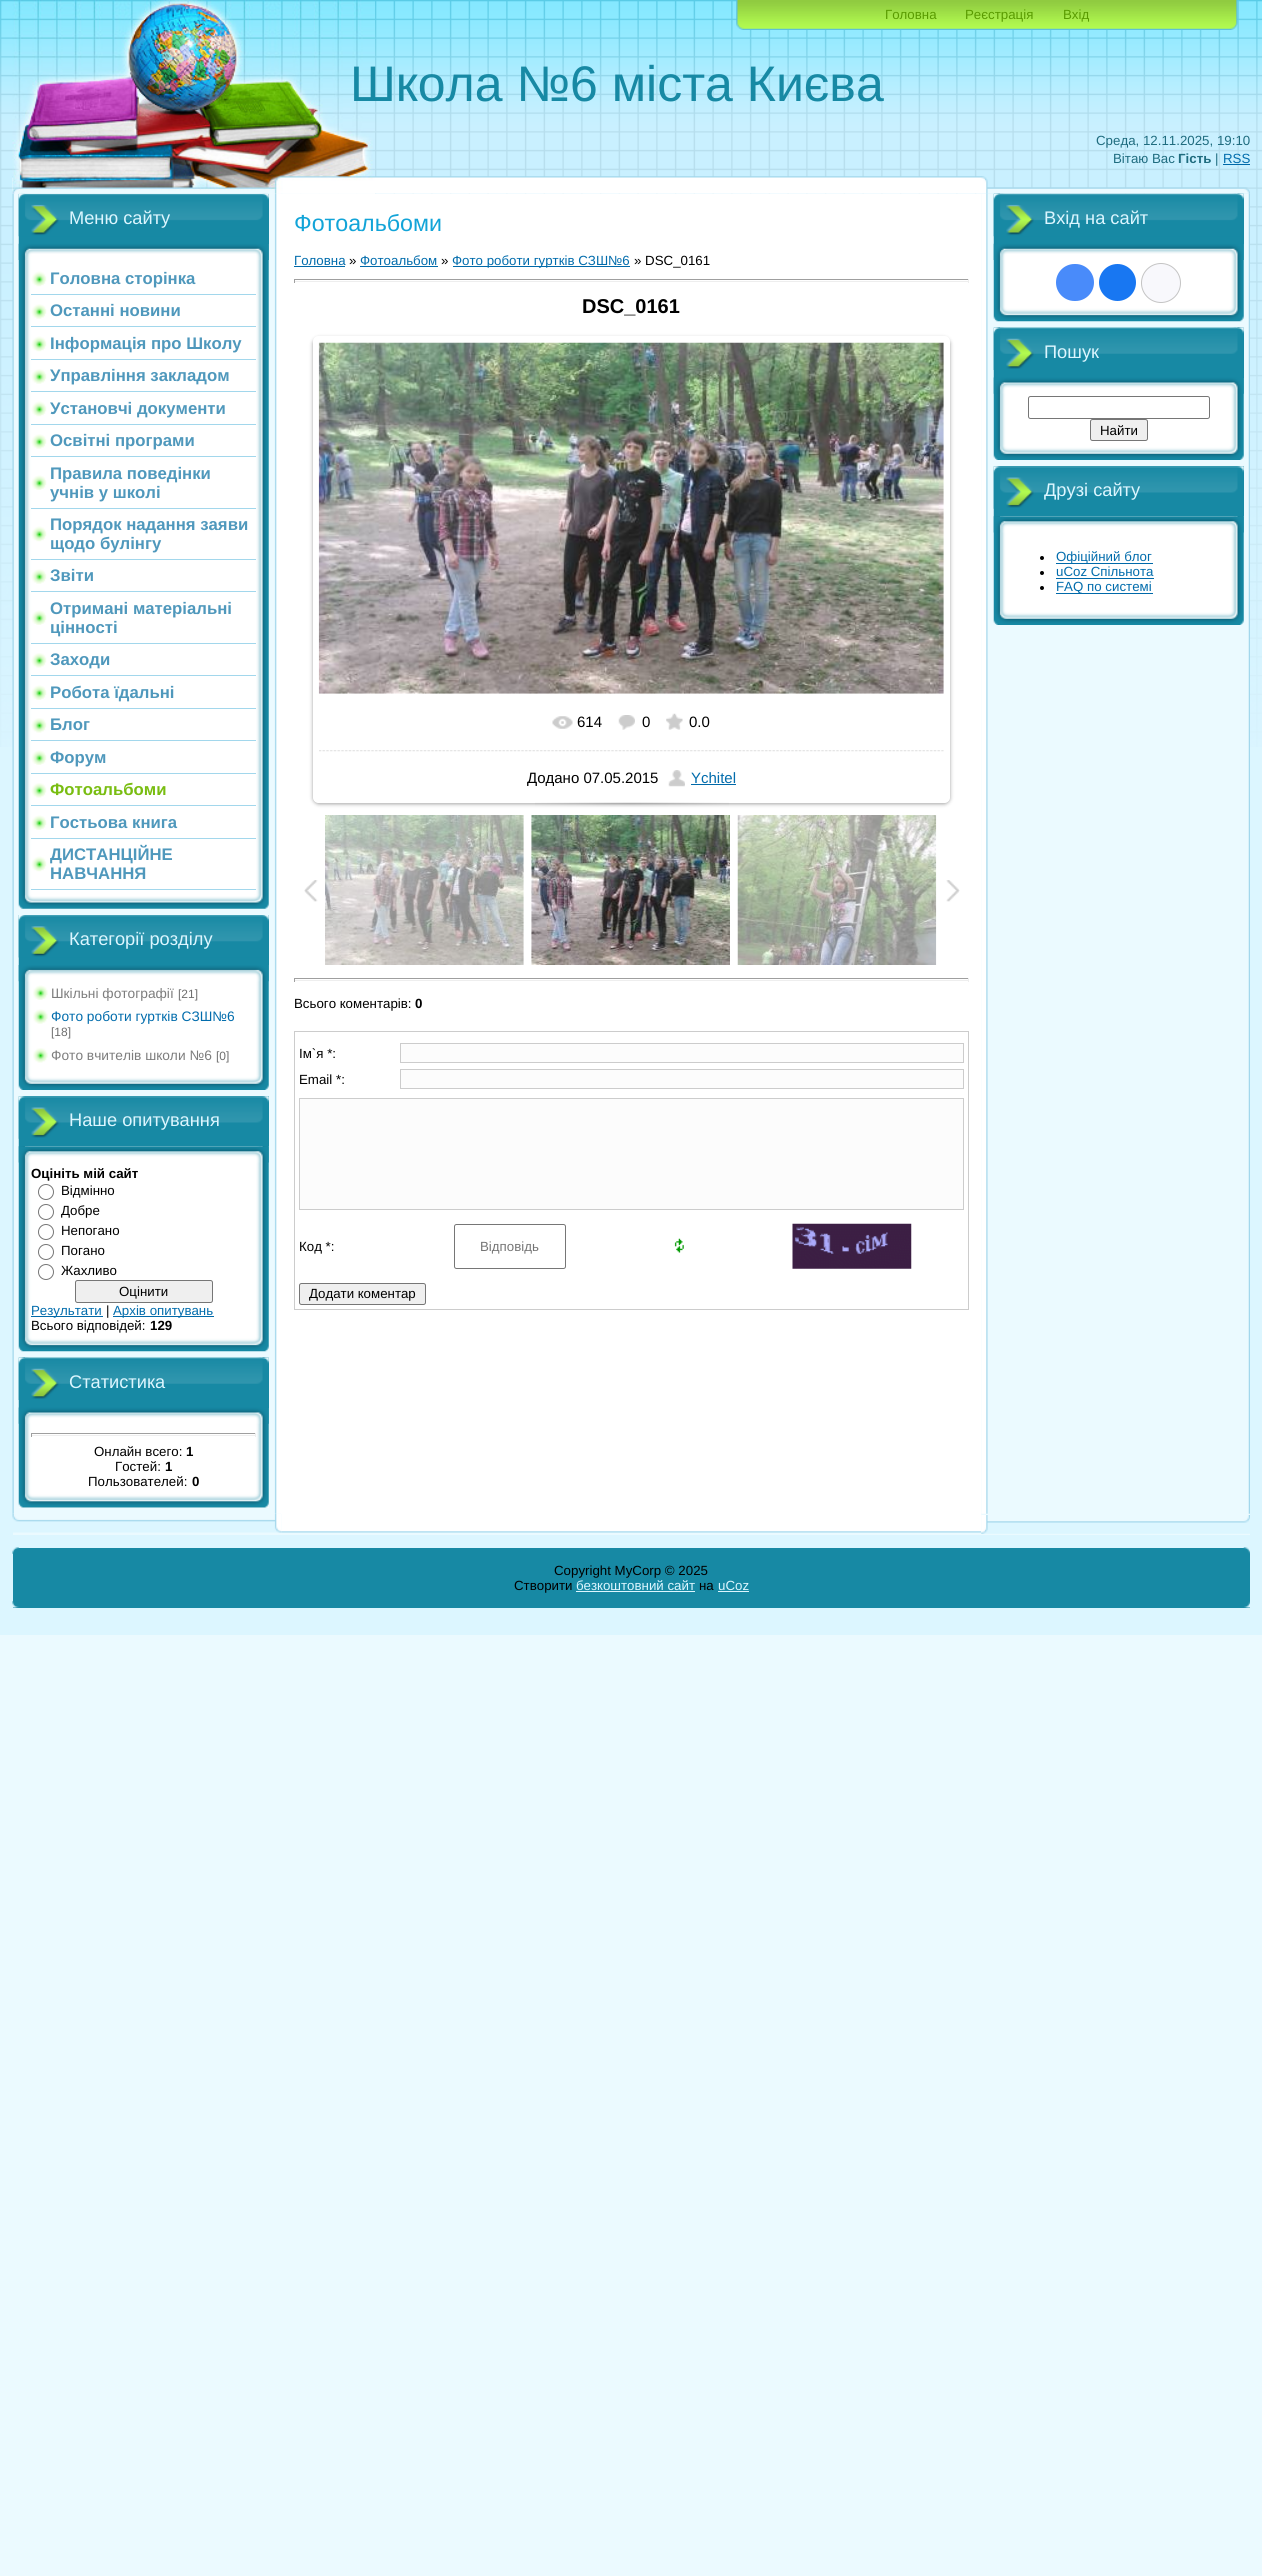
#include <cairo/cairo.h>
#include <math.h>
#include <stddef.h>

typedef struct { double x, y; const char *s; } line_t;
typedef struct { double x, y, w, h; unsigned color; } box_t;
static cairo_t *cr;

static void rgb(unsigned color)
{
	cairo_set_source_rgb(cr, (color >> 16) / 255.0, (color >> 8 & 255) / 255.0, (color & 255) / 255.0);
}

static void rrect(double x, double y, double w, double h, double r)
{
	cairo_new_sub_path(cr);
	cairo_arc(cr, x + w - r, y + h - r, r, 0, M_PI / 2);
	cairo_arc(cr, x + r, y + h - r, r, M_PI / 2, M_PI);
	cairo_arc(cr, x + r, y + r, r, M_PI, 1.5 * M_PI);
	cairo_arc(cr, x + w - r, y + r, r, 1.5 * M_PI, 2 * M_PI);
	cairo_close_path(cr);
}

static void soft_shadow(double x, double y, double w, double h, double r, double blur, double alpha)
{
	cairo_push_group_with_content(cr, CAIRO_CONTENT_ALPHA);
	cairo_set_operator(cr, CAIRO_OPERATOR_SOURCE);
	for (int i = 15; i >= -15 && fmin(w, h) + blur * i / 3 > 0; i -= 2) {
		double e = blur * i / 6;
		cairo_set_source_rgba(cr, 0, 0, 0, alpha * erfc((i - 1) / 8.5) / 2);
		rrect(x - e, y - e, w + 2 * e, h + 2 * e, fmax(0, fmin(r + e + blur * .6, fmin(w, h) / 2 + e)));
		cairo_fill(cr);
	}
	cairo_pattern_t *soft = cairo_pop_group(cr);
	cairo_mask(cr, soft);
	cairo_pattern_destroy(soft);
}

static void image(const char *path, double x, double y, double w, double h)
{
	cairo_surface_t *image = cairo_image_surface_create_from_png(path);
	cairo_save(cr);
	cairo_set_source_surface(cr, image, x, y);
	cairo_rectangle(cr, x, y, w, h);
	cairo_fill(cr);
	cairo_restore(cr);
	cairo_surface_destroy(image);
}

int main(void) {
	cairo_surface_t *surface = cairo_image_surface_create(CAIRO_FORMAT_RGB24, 1262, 2576);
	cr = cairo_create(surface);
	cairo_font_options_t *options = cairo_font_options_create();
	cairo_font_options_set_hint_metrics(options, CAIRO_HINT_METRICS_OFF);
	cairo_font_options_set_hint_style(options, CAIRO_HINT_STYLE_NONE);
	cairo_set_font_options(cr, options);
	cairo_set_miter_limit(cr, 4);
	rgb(0xebfaff);
	cairo_paint(cr);
	rgb(0xdcf6ff);
	cairo_rectangle(cr, 0, 747, 1262, 888);
	cairo_fill(cr);
	image("img/1.png", 0, 0, 1262, 747);
	image("img/2.png", 12, 176, 1238, 18);
	rgb(0xebfaff);
	cairo_rectangle(cr, 13, 194, 1237, 1341);
	cairo_fill(cr);
	image("img/5.png", 12, 193, 270, 1321);
	rgb(0xffffff);
	cairo_rectangle(cr, 19, 244, 250, 665);
	cairo_fill(cr);
	image("img/6.png", 18, 193, 251, 716);
	rgb(0x1789a4);
	cairo_rectangle(cr, 20, 194, 249, 50);
	cairo_fill(cr);
	image("img/7.png", 18, 193, 251, 44);
	image("img/3.png", 12, 0, 363, 194);
	image("img/4.png", 736, 0, 502, 30);
	rgb(0x0069a9);
	cairo_rectangle(cr, 1223, 164, 27, 1);
	cairo_fill(cr);
	image("img/8.png", 18, 243, 251, 17);
	image("img/9.png", 31, 271, 16, 16);
	rgb(0xa2d7ec);
	cairo_rectangle(cr, 31, 294, 225, 1);
	cairo_fill(cr);
	image("img/10.png", 31, 304, 16, 15);
	cairo_rectangle(cr, 31, 326, 225, 1);
	cairo_fill(cr);
	image("img/9.png", 31, 336, 16, 16);
	cairo_rectangle(cr, 31, 359, 225, 1);
	cairo_fill(cr);
	image("img/10.png", 31, 369, 16, 15);
	cairo_rectangle(cr, 31, 391, 225, 1);
	cairo_fill(cr);
	image("img/9.png", 31, 401, 16, 16);
	cairo_rectangle(cr, 31, 424, 225, 1);
	cairo_fill(cr);
	image("img/10.png", 31, 434, 16, 15);
	cairo_rectangle(cr, 31, 456, 225, 1);
	cairo_fill(cr);
	image("img/11.png", 31, 475, 16, 15);
	cairo_rectangle(cr, 31, 508, 225, 1);
	cairo_fill(cr);
	image("img/9.png", 31, 526, 16, 16);
	cairo_rectangle(cr, 31, 559, 225, 1);
	cairo_fill(cr);
	image("img/10.png", 31, 569, 16, 15);
	cairo_rectangle(cr, 31, 591, 225, 1);
	cairo_fill(cr);
	image("img/11.png", 31, 610, 16, 15);
	cairo_rectangle(cr, 31, 643, 225, 1);
	cairo_fill(cr);
	image("img/12.png", 31, 653, 16, 15);
	cairo_rectangle(cr, 31, 675, 225, 1);
	cairo_fill(cr);
	image("img/11.png", 31, 685, 16, 15);
	cairo_rectangle(cr, 31, 708, 225, 1);
	cairo_fill(cr);
	image("img/12.png", 31, 718, 16, 15);
	cairo_rectangle(cr, 31, 740, 225, 1);
	cairo_fill(cr);
	image("img/11.png", 31, 750, 16, 15);
	cairo_rectangle(cr, 31, 773, 225, 1);
	cairo_fill(cr);
	image("img/12.png", 31, 783, 16, 15);
	cairo_rectangle(cr, 31, 805, 225, 1);
	cairo_fill(cr);
	image("img/11.png", 31, 815, 16, 15);
	cairo_rectangle(cr, 31, 838, 225, 1);
	cairo_fill(cr);
	image("img/9.png", 31, 856, 16, 16);
	cairo_rectangle(cr, 31, 889, 225, 1);
	cairo_fill(cr);
	image("img/13.png", 18, 915, 251, 175);
	rgb(0x1789a4);
	cairo_rectangle(cr, 20, 915, 249, 50);
	cairo_fill(cr);
	image("img/14.png", 18, 915, 251, 43);
	image("img/15.png", 18, 965, 251, 17);
	image("img/16.png", 33, 985, 15, 15);
	image("img/17.png", 33, 1009, 15, 15);
	image("img/18.png", 33, 1048, 15, 15);
	image("img/19.png", 18, 1096, 251, 256);
	cairo_rectangle(cr, 19, 1096, 250, 50);
	cairo_fill(cr);
	image("img/20.png", 18, 1096, 251, 43);
	image("img/21.png", 18, 1146, 251, 17);
	cairo_arc(cr, 46, 1192, 7.5, 0, 2 * M_PI);
	rgb(0x767676);
	cairo_set_line_width(cr, 1);
	cairo_stroke(cr);
	cairo_arc(cr, 46, 1212, 7.5, 0, 2 * M_PI);
	cairo_stroke(cr);
	cairo_arc(cr, 46, 1232, 7.5, 0, 2 * M_PI);
	cairo_stroke(cr);
	cairo_arc(cr, 46, 1252, 7.5, 0, 2 * M_PI);
	cairo_stroke(cr);
	cairo_arc(cr, 46, 1272, 7.5, 0, 2 * M_PI);
	cairo_stroke(cr);
	rgb(0xefefef);
	rrect(75.5, 1280.5, 137, 22, 2);
	cairo_fill_preserve(cr);
	rgb(0x767676);
	cairo_stroke(cr);
	{
		static const box_t items[] = {
			{31, 1316, 72, 1, 0x0069a9},
			{113, 1316, 101, 1, 0x0069a9},
			{19, 1408, 250, 100, 0xffffff},
		};
		for (size_t i = 0; i < sizeof items / sizeof *items; i++) {
			rgb(items[i].color);
			cairo_rectangle(cr, items[i].x, items[i].y, items[i].w, items[i].h);
			cairo_fill(cr);
		}
	}
	image("img/22.png", 18, 1357, 251, 151);
	rgb(0x1789a4);
	cairo_rectangle(cr, 20, 1358, 249, 50);
	cairo_fill(cr);
	image("img/23.png", 18, 1357, 251, 43);
	image("img/24.png", 18, 1407, 251, 17);
	{
		static const box_t items[] = {
			{31, 1433, 225, 1, 0x9f9f9f},
			{255, 1433, 1, 4, 0xeeeeee},
			{31, 1435, 225, 1, 0xeeeeee},
			{31, 1433, 1, 4, 0x9f9f9f},
			{281, 194, 700, 1320, 0xffffff},
			{294, 266, 51, 1, 0x0069a9},
			{360, 266, 78, 1, 0x0069a9},
			{453, 266, 177, 1, 0x0069a9},
			{294, 279, 675, 1, 0x9f9f9f},
			{968, 279, 1, 4, 0xeeeeee},
			{294, 281, 675, 1, 0xeeeeee},
			{294, 279, 1, 4, 0x9f9f9f},
		};
		for (size_t i = 0; i < sizeof items / sizeof *items; i++) {
			rgb(items[i].color);
			cairo_rectangle(cr, items[i].x, items[i].y, items[i].w, items[i].h);
			cairo_fill(cr);
		}
	}
	cairo_save(cr);
	cairo_set_fill_rule(cr, CAIRO_FILL_RULE_EVEN_ODD);
	cairo_new_path(cr);
	cairo_move_to(cr, 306, 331);
	cairo_line_to(cr, 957, 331);
	cairo_line_to(cr, 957, 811);
	cairo_line_to(cr, 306, 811);
	cairo_close_path(cr);
	cairo_move_to(cr, 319, 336);
	cairo_line_to(cr, 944, 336);
	cairo_curve_to(cr, 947.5, 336, 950, 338.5, 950, 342);
	cairo_line_to(cr, 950, 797);
	cairo_curve_to(cr, 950, 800.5, 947.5, 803, 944, 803);
	cairo_line_to(cr, 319, 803);
	cairo_curve_to(cr, 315.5, 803, 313, 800.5, 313, 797);
	cairo_line_to(cr, 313, 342);
	cairo_curve_to(cr, 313, 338.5, 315.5, 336, 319, 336);
	cairo_close_path(cr);
	cairo_clip(cr);
	rgb(0x000000);
	soft_shadow(313, 338, 637, 466, 6, 2, 0.37);
	cairo_restore(cr);
	image("img/25.png", 318, 342, 626, 352);
	image("img/26.png", 552, 716, 21, 13);
	image("img/27.png", 618, 715, 17, 15);
	image("img/28.png", 666, 713, 17, 17);
	image("img/29.png", 319, 750, 625, 2);
	image("img/30.png", 668, 770, 17, 17);
	rgb(0x0069a9);
	cairo_rectangle(cr, 691, 784, 45, 1);
	cairo_fill(cr);
	image("img/31.png", 535, 802, 194, 5);
	image("img/32.png", 304, 880, 14, 22);
	image("img/33.png", 325, 815, 199, 150);
	image("img/34.png", 531, 815, 199, 150);
	image("img/35.png", 737, 815, 200, 150);
	image("img/36.png", 946, 880, 14, 22);
	{
		static const box_t items[] = {
			{294, 978, 675, 1, 0x9f9f9f},
			{968, 978, 1, 4, 0xeeeeee},
			{294, 980, 675, 1, 0xeeeeee},
			{294, 978, 1, 4, 0x9f9f9f},
		};
		for (size_t i = 0; i < sizeof items / sizeof *items; i++) {
			rgb(items[i].color);
			cairo_rectangle(cr, items[i].x, items[i].y, items[i].w, items[i].h);
			cairo_fill(cr);
		}
	}
	cairo_rectangle(cr, 294.5, 1031.5, 674, 278);
	rgb(0xcccccc);
	cairo_stroke(cr);
	rgb(0xfcfcfc);
	cairo_rectangle(cr, 400.5, 1043.5, 563, 19);
	cairo_fill_preserve(cr);
	rgb(0xcccccc);
	cairo_stroke(cr);
	rgb(0xfcfcfc);
	cairo_rectangle(cr, 400.5, 1069.5, 563, 19);
	cairo_fill_preserve(cr);
	rgb(0xcccccc);
	cairo_stroke(cr);
	rgb(0xfcfcfc);
	cairo_rectangle(cr, 299.5, 1098.5, 664, 111);
	cairo_fill_preserve(cr);
	rgb(0xcccccc);
	cairo_stroke(cr);
	rrect(454.5, 1224.5, 111, 44, 2);
	rgb(0x767676);
	cairo_stroke(cr);
	image("img/37.png", 674, 1238, 10, 15);
	image("img/38.png", 792, 1223, 120, 46);
	rgb(0xefefef);
	rrect(299.5, 1283.5, 126, 21, 2);
	cairo_fill_preserve(cr);
	rgb(0x767676);
	cairo_stroke(cr);
	image("img/39.png", 981, 194, 269, 1320);
	image("img/40.png", 993, 193, 251, 129);
	rgb(0x1789a4);
	cairo_rectangle(cr, 995, 194, 249, 50);
	cairo_fill(cr);
	image("img/41.png", 993, 193, 251, 44);
	image("img/42.png", 993, 243, 251, 17);
	rgb(0x498bfa);
	rrect(1056, 264, 38, 37, 18.5);
	cairo_fill(cr);
	rgb(0x1877f2);
	cairo_arc(cr, 1117.5, 282.5, 18.5, 0, 2 * M_PI);
	cairo_fill(cr);
	rgb(0xf8f8fc);
	cairo_arc(cr, 1161, 283, 19.5, 0, 2 * M_PI);
	cairo_fill_preserve(cr);
	rgb(0xc4c4c4);
	cairo_stroke(cr);
	image("img/43.png", 993, 327, 251, 133);
	rgb(0x1789a4);
	cairo_rectangle(cr, 995, 328, 249, 50);
	cairo_fill(cr);
	image("img/44.png", 993, 327, 251, 43);
	image("img/45.png", 993, 377, 251, 17);
	rrect(1028.5, 396.5, 181, 22, 2);
	rgb(0x767676);
	cairo_stroke(cr);
	rgb(0xefefef);
	rrect(1090.5, 419.5, 57, 21, 2);
	cairo_fill_preserve(cr);
	rgb(0x767676);
	cairo_stroke(cr);
	image("img/46.png", 993, 466, 251, 159);
	rgb(0x1789a4);
	cairo_rectangle(cr, 994, 466, 250, 50);
	cairo_fill(cr);
	image("img/47.png", 993, 466, 251, 43);
	image("img/48.png", 993, 516, 251, 17);
	rgb(0x000000);
	cairo_arc(cr, 1042, 558, 2, 0, 2 * M_PI);
	cairo_fill(cr);
	rgb(0x0069a9);
	cairo_rectangle(cr, 1056, 563, 97, 1);
	cairo_fill(cr);
	rgb(0x000000);
	cairo_arc(cr, 1042, 573, 2, 0, 2 * M_PI);
	cairo_fill(cr);
	rgb(0x0069a9);
	cairo_rectangle(cr, 1056, 578, 98, 1);
	cairo_fill(cr);
	rgb(0x000000);
	cairo_arc(cr, 1042, 588, 2, 0, 2 * M_PI);
	cairo_fill(cr);
	rgb(0x0069a9);
	cairo_rectangle(cr, 1056, 593, 97, 1);
	cairo_fill(cr);
	image("img/49.png", 12, 1513, 270, 20);
	image("img/50.png", 281, 1514, 701, 19);
	image("img/51.png", 981, 1515, 269, 19);
	rgb(0x1789a4);
	cairo_rectangle(cr, 13, 1548, 1237, 60);
	cairo_fill(cr);
	image("img/52.png", 12, 1547, 7, 7);
	image("img/53.png", 1243, 1547, 7, 7);
	image("img/54.png", 1244, 1601, 6, 7);
	image("img/55.png", 12, 1601, 7, 7);
	rgb(0xdcf6ff);
	cairo_rectangle(cr, 576, 1591, 119, 1);
	cairo_fill(cr);
	cairo_rectangle(cr, 718, 1591, 31, 1);
	cairo_fill(cr);
	cairo_select_font_face(cr, "Liberation Sans", CAIRO_FONT_SLANT_NORMAL, CAIRO_FONT_WEIGHT_NORMAL);
	cairo_set_font_size(cr, 13.3);
	rgb(0x599b00);
	{
		static const line_t items[] = {
			{885, 19, "Головна"},
			{965, 19, "Реєстрація"},
			{1063, 19, "Вхід"},
		};
		for (size_t i = 0; i < sizeof items / sizeof *items; i++) {
			cairo_move_to(cr, items[i].x, items[i].y);
			cairo_show_text(cr, items[i].s);
		}
	}
	cairo_set_font_size(cr, 50);
	rgb(0x1789a4);
	cairo_move_to(cr, 350, 101);
	cairo_show_text(cr, "Школа №6 міста Києва");
	cairo_set_font_size(cr, 13.3);
	rgb(0x1f6c7f);
	cairo_move_to(cr, 1096, 145);
	cairo_show_text(cr, "Среда, 12.11.2025, 19:10");
	cairo_move_to(cr, 1113, 163);
	cairo_show_text(cr, "Вітаю Вас");
	cairo_select_font_face(cr, "Liberation Sans", CAIRO_FONT_SLANT_NORMAL, CAIRO_FONT_WEIGHT_BOLD);
	cairo_move_to(cr, 1178, 163);
	cairo_show_text(cr, "Гість");
	cairo_select_font_face(cr, "Liberation Sans", CAIRO_FONT_SLANT_NORMAL, CAIRO_FONT_WEIGHT_NORMAL);
	cairo_move_to(cr, 1215, 163);
	cairo_show_text(cr, "|");
	rgb(0x016cac);
	cairo_move_to(cr, 1223, 163);
	cairo_show_text(cr, "RSS");
	cairo_set_font_size(cr, 18.25);
	rgb(0xdcf6ff);
	cairo_move_to(cr, 69, 224);
	cairo_show_text(cr, "Меню сайту");
	cairo_select_font_face(cr, "Liberation Sans", CAIRO_FONT_SLANT_NORMAL, CAIRO_FONT_WEIGHT_BOLD);
	cairo_set_font_size(cr, 16.75);
	rgb(0x4f98bc);
	{
		static const line_t items[] = {
			{50, 284, "Головна сторінка"},
			{50, 316, "Останні новини"},
			{50, 349, "Інформація про Школу"},
			{50, 381, "Управління закладом"},
			{50, 414, "Установчі документи"},
			{50, 446, "Освітні програми"},
			{50, 479, "Правила поведінки"},
			{50, 498, "учнів у школі"},
			{50, 530, "Порядок надання заяви"},
			{50, 549, "щодо булінгу"},
			{50, 581, "Звіти"},
			{50, 614, "Отримані матеріальні"},
			{50, 633, "цінності"},
			{50, 665, "Заходи"},
			{50, 698, "Робота їдальні"},
			{50, 730, "Блог"},
			{50, 763, "Форум"},
		};
		for (size_t i = 0; i < sizeof items / sizeof *items; i++) {
			cairo_move_to(cr, items[i].x, items[i].y);
			cairo_show_text(cr, items[i].s);
		}
	}
	rgb(0x79bd11);
	cairo_move_to(cr, 50, 795);
	cairo_show_text(cr, "Фотоальбоми");
	rgb(0x4f98bc);
	{
		static const line_t items[] = {
			{50, 828, "Гостьова книга"},
			{50, 860, "ДИСТАНЦІЙНЕ"},
			{50, 879, "НАВЧАННЯ"},
		};
		for (size_t i = 0; i < sizeof items / sizeof *items; i++) {
			cairo_move_to(cr, items[i].x, items[i].y);
			cairo_show_text(cr, items[i].s);
		}
	}
	cairo_select_font_face(cr, "Liberation Sans", CAIRO_FONT_SLANT_NORMAL, CAIRO_FONT_WEIGHT_NORMAL);
	cairo_set_font_size(cr, 18.25);
	rgb(0xdcf6ff);
	cairo_move_to(cr, 69, 945);
	cairo_show_text(cr, "Категорії розділу");
	cairo_set_font_size(cr, 13.75);
	rgb(0x7d7d7d);
	cairo_move_to(cr, 51, 998);
	cairo_show_text(cr, "Шкільні фотографії");
	cairo_set_font_size(cr, 12);
	rgb(0x6e6e6e);
	cairo_move_to(cr, 178, 998);
	cairo_show_text(cr, "[21]");
	cairo_set_font_size(cr, 13.75);
	rgb(0x016cac);
	cairo_move_to(cr, 51, 1021);
	cairo_show_text(cr, "Фото роботи гуртків СЗШ№6");
	cairo_set_font_size(cr, 12);
	rgb(0x6e6e6e);
	cairo_move_to(cr, 51, 1036);
	cairo_show_text(cr, "[18]");
	cairo_set_font_size(cr, 13.75);
	rgb(0x7d7d7d);
	cairo_move_to(cr, 51, 1060);
	cairo_show_text(cr, "Фото вчителів школи №6");
	cairo_set_font_size(cr, 12);
	rgb(0x6e6e6e);
	cairo_move_to(cr, 216, 1060);
	cairo_show_text(cr, "[0]");
	cairo_set_font_size(cr, 18.25);
	rgb(0xdcf6ff);
	cairo_move_to(cr, 69, 1126);
	cairo_show_text(cr, "Наше опитування");
	cairo_select_font_face(cr, "Liberation Sans", CAIRO_FONT_SLANT_NORMAL, CAIRO_FONT_WEIGHT_BOLD);
	cairo_set_font_size(cr, 13.3);
	rgb(0x000000);
	cairo_move_to(cr, 31, 1178);
	cairo_show_text(cr, "Оцініть мій сайт");
	cairo_select_font_face(cr, "Liberation Sans", CAIRO_FONT_SLANT_NORMAL, CAIRO_FONT_WEIGHT_NORMAL);
	{
		static const line_t items[] = {
			{61, 1195, "Відмінно"},
			{61, 1215, "Добре"},
			{61, 1235, "Непогано"},
			{61, 1255, "Погано"},
			{61, 1275, "Жахливо"},
			{119, 1296, "Оцінити"},
		};
		for (size_t i = 0; i < sizeof items / sizeof *items; i++) {
			cairo_move_to(cr, items[i].x, items[i].y);
			cairo_show_text(cr, items[i].s);
		}
	}
	rgb(0x016cac);
	cairo_move_to(cr, 31, 1315);
	cairo_show_text(cr, "Результати");
	rgb(0x000000);
	cairo_move_to(cr, 106, 1315);
	cairo_show_text(cr, "|");
	rgb(0x016cac);
	cairo_move_to(cr, 113, 1315);
	cairo_show_text(cr, "Архів опитувань");
	rgb(0x000000);
	cairo_move_to(cr, 31, 1330);
	cairo_show_text(cr, "Всього відповідей:");
	cairo_select_font_face(cr, "Liberation Sans", CAIRO_FONT_SLANT_NORMAL, CAIRO_FONT_WEIGHT_BOLD);
	cairo_move_to(cr, 150, 1330);
	cairo_show_text(cr, "129");
	cairo_select_font_face(cr, "Liberation Sans", CAIRO_FONT_SLANT_NORMAL, CAIRO_FONT_WEIGHT_NORMAL);
	cairo_set_font_size(cr, 18.25);
	rgb(0xdcf6ff);
	cairo_move_to(cr, 69, 1388);
	cairo_show_text(cr, "Статистика");
	cairo_set_font_size(cr, 13.3);
	rgb(0x000000);
	cairo_move_to(cr, 94, 1456);
	cairo_show_text(cr, "Онлайн всего:");
	cairo_select_font_face(cr, "Liberation Sans", CAIRO_FONT_SLANT_NORMAL, CAIRO_FONT_WEIGHT_BOLD);
	cairo_move_to(cr, 186, 1456);
	cairo_show_text(cr, "1");
	cairo_select_font_face(cr, "Liberation Sans", CAIRO_FONT_SLANT_NORMAL, CAIRO_FONT_WEIGHT_NORMAL);
	cairo_move_to(cr, 115, 1471);
	cairo_show_text(cr, "Гостей:");
	cairo_select_font_face(cr, "Liberation Sans", CAIRO_FONT_SLANT_NORMAL, CAIRO_FONT_WEIGHT_BOLD);
	cairo_move_to(cr, 165, 1471);
	cairo_show_text(cr, "1");
	cairo_select_font_face(cr, "Liberation Sans", CAIRO_FONT_SLANT_NORMAL, CAIRO_FONT_WEIGHT_NORMAL);
	cairo_move_to(cr, 88, 1486);
	cairo_show_text(cr, "Пользователей:");
	cairo_select_font_face(cr, "Liberation Sans", CAIRO_FONT_SLANT_NORMAL, CAIRO_FONT_WEIGHT_BOLD);
	cairo_move_to(cr, 192, 1486);
	cairo_show_text(cr, "0");
	cairo_select_font_face(cr, "Liberation Sans", CAIRO_FONT_SLANT_NORMAL, CAIRO_FONT_WEIGHT_NORMAL);
	cairo_set_font_size(cr, 23.25);
	rgb(0x12a4d8);
	cairo_move_to(cr, 294, 231);
	cairo_show_text(cr, "Фотоальбоми");
	cairo_set_font_size(cr, 13.3);
	rgb(0x016cac);
	cairo_move_to(cr, 294, 265);
	cairo_show_text(cr, "Головна");
	rgb(0x000000);
	cairo_move_to(cr, 349, 265);
	cairo_show_text(cr, "»");
	rgb(0x016cac);
	cairo_move_to(cr, 360, 265);
	cairo_show_text(cr, "Фотоальбом");
	rgb(0x000000);
	cairo_move_to(cr, 441, 265);
	cairo_show_text(cr, "»");
	rgb(0x016cac);
	cairo_move_to(cr, 452, 265);
	cairo_show_text(cr, "Фото роботи гуртків СЗШ№6");
	rgb(0x000000);
	cairo_move_to(cr, 634, 265);
	cairo_show_text(cr, "» DSC_0161");
	cairo_select_font_face(cr, "Liberation Sans", CAIRO_FONT_SLANT_NORMAL, CAIRO_FONT_WEIGHT_BOLD);
	cairo_set_font_size(cr, 20);
	cairo_move_to(cr, 582, 313);
	cairo_show_text(cr, "DSC_0161");
	cairo_select_font_face(cr, "Liberation Sans", CAIRO_FONT_SLANT_NORMAL, CAIRO_FONT_WEIGHT_NORMAL);
	cairo_set_font_size(cr, 15);
	{
		static const line_t items[] = {
			{577, 727, "614"},
			{642, 727, "0"},
			{689, 727, "0.0"},
			{527, 783, "Додано 07.05.2015"},
		};
		for (size_t i = 0; i < sizeof items / sizeof *items; i++) {
			cairo_move_to(cr, items[i].x, items[i].y);
			cairo_show_text(cr, items[i].s);
		}
	}
	rgb(0x016cac);
	cairo_move_to(cr, 691, 783);
	cairo_show_text(cr, "Ychitel");
	cairo_set_font_size(cr, 13.3);
	rgb(0x000000);
	cairo_move_to(cr, 294, 1008);
	cairo_show_text(cr, "Всього коментарів:");
	cairo_select_font_face(cr, "Liberation Sans", CAIRO_FONT_SLANT_NORMAL, CAIRO_FONT_WEIGHT_BOLD);
	cairo_move_to(cr, 415, 1008);
	cairo_show_text(cr, "0");
	cairo_select_font_face(cr, "Liberation Sans", CAIRO_FONT_SLANT_NORMAL, CAIRO_FONT_WEIGHT_NORMAL);
	{
		static const line_t items[] = {
			{299, 1058, "Ім`я *:"},
			{299, 1084, "Email *:"},
			{299, 1251, "Код *:"},
		};
		for (size_t i = 0; i < sizeof items / sizeof *items; i++) {
			cairo_move_to(cr, items[i].x, items[i].y);
			cairo_show_text(cr, items[i].s);
		}
	}
	rgb(0x757575);
	cairo_move_to(cr, 480, 1251);
	cairo_show_text(cr, "Відповідь");
	rgb(0x000000);
	cairo_move_to(cr, 309, 1298);
	cairo_show_text(cr, "Додати коментар");
	cairo_set_font_size(cr, 18.25);
	rgb(0xdcf6ff);
	cairo_move_to(cr, 1044, 224);
	cairo_show_text(cr, "Вхід на сайт");
	cairo_move_to(cr, 1044, 358);
	cairo_show_text(cr, "Пошук");
	cairo_set_font_size(cr, 13.3);
	rgb(0x000000);
	cairo_move_to(cr, 1100, 435);
	cairo_show_text(cr, "Найти");
	cairo_set_font_size(cr, 18.25);
	rgb(0xdcf6ff);
	cairo_move_to(cr, 1044, 496);
	cairo_show_text(cr, "Друзі сайту");
	cairo_set_font_size(cr, 13.3);
	rgb(0x016cac);
	{
		static const line_t items[] = {
			{1056, 561, "Офіційний блог"},
			{1056, 576, "uCoz Спільнота"},
			{1056, 591, "FAQ по системі"},
		};
		for (size_t i = 0; i < sizeof items / sizeof *items; i++) {
			cairo_move_to(cr, items[i].x, items[i].y);
			cairo_show_text(cr, items[i].s);
		}
	}
	rgb(0x000000);
	cairo_move_to(cr, 554, 1575);
	cairo_show_text(cr, "Copyright MyCorp © 2025");
	cairo_move_to(cr, 514, 1590);
	cairo_show_text(cr, "Створити");
	rgb(0xdcf6ff);
	cairo_move_to(cr, 576, 1590);
	cairo_show_text(cr, "безкоштовний сайт");
	rgb(0x000000);
	cairo_move_to(cr, 699, 1590);
	cairo_show_text(cr, "на");
	rgb(0xdcf6ff);
	cairo_move_to(cr, 718, 1590);
	cairo_show_text(cr, "uCoz");
	cairo_surface_write_to_png(surface, "page.png");
	cairo_font_options_destroy(options);
	cairo_destroy(cr);
	cairo_surface_destroy(surface);
	return 0;
}
